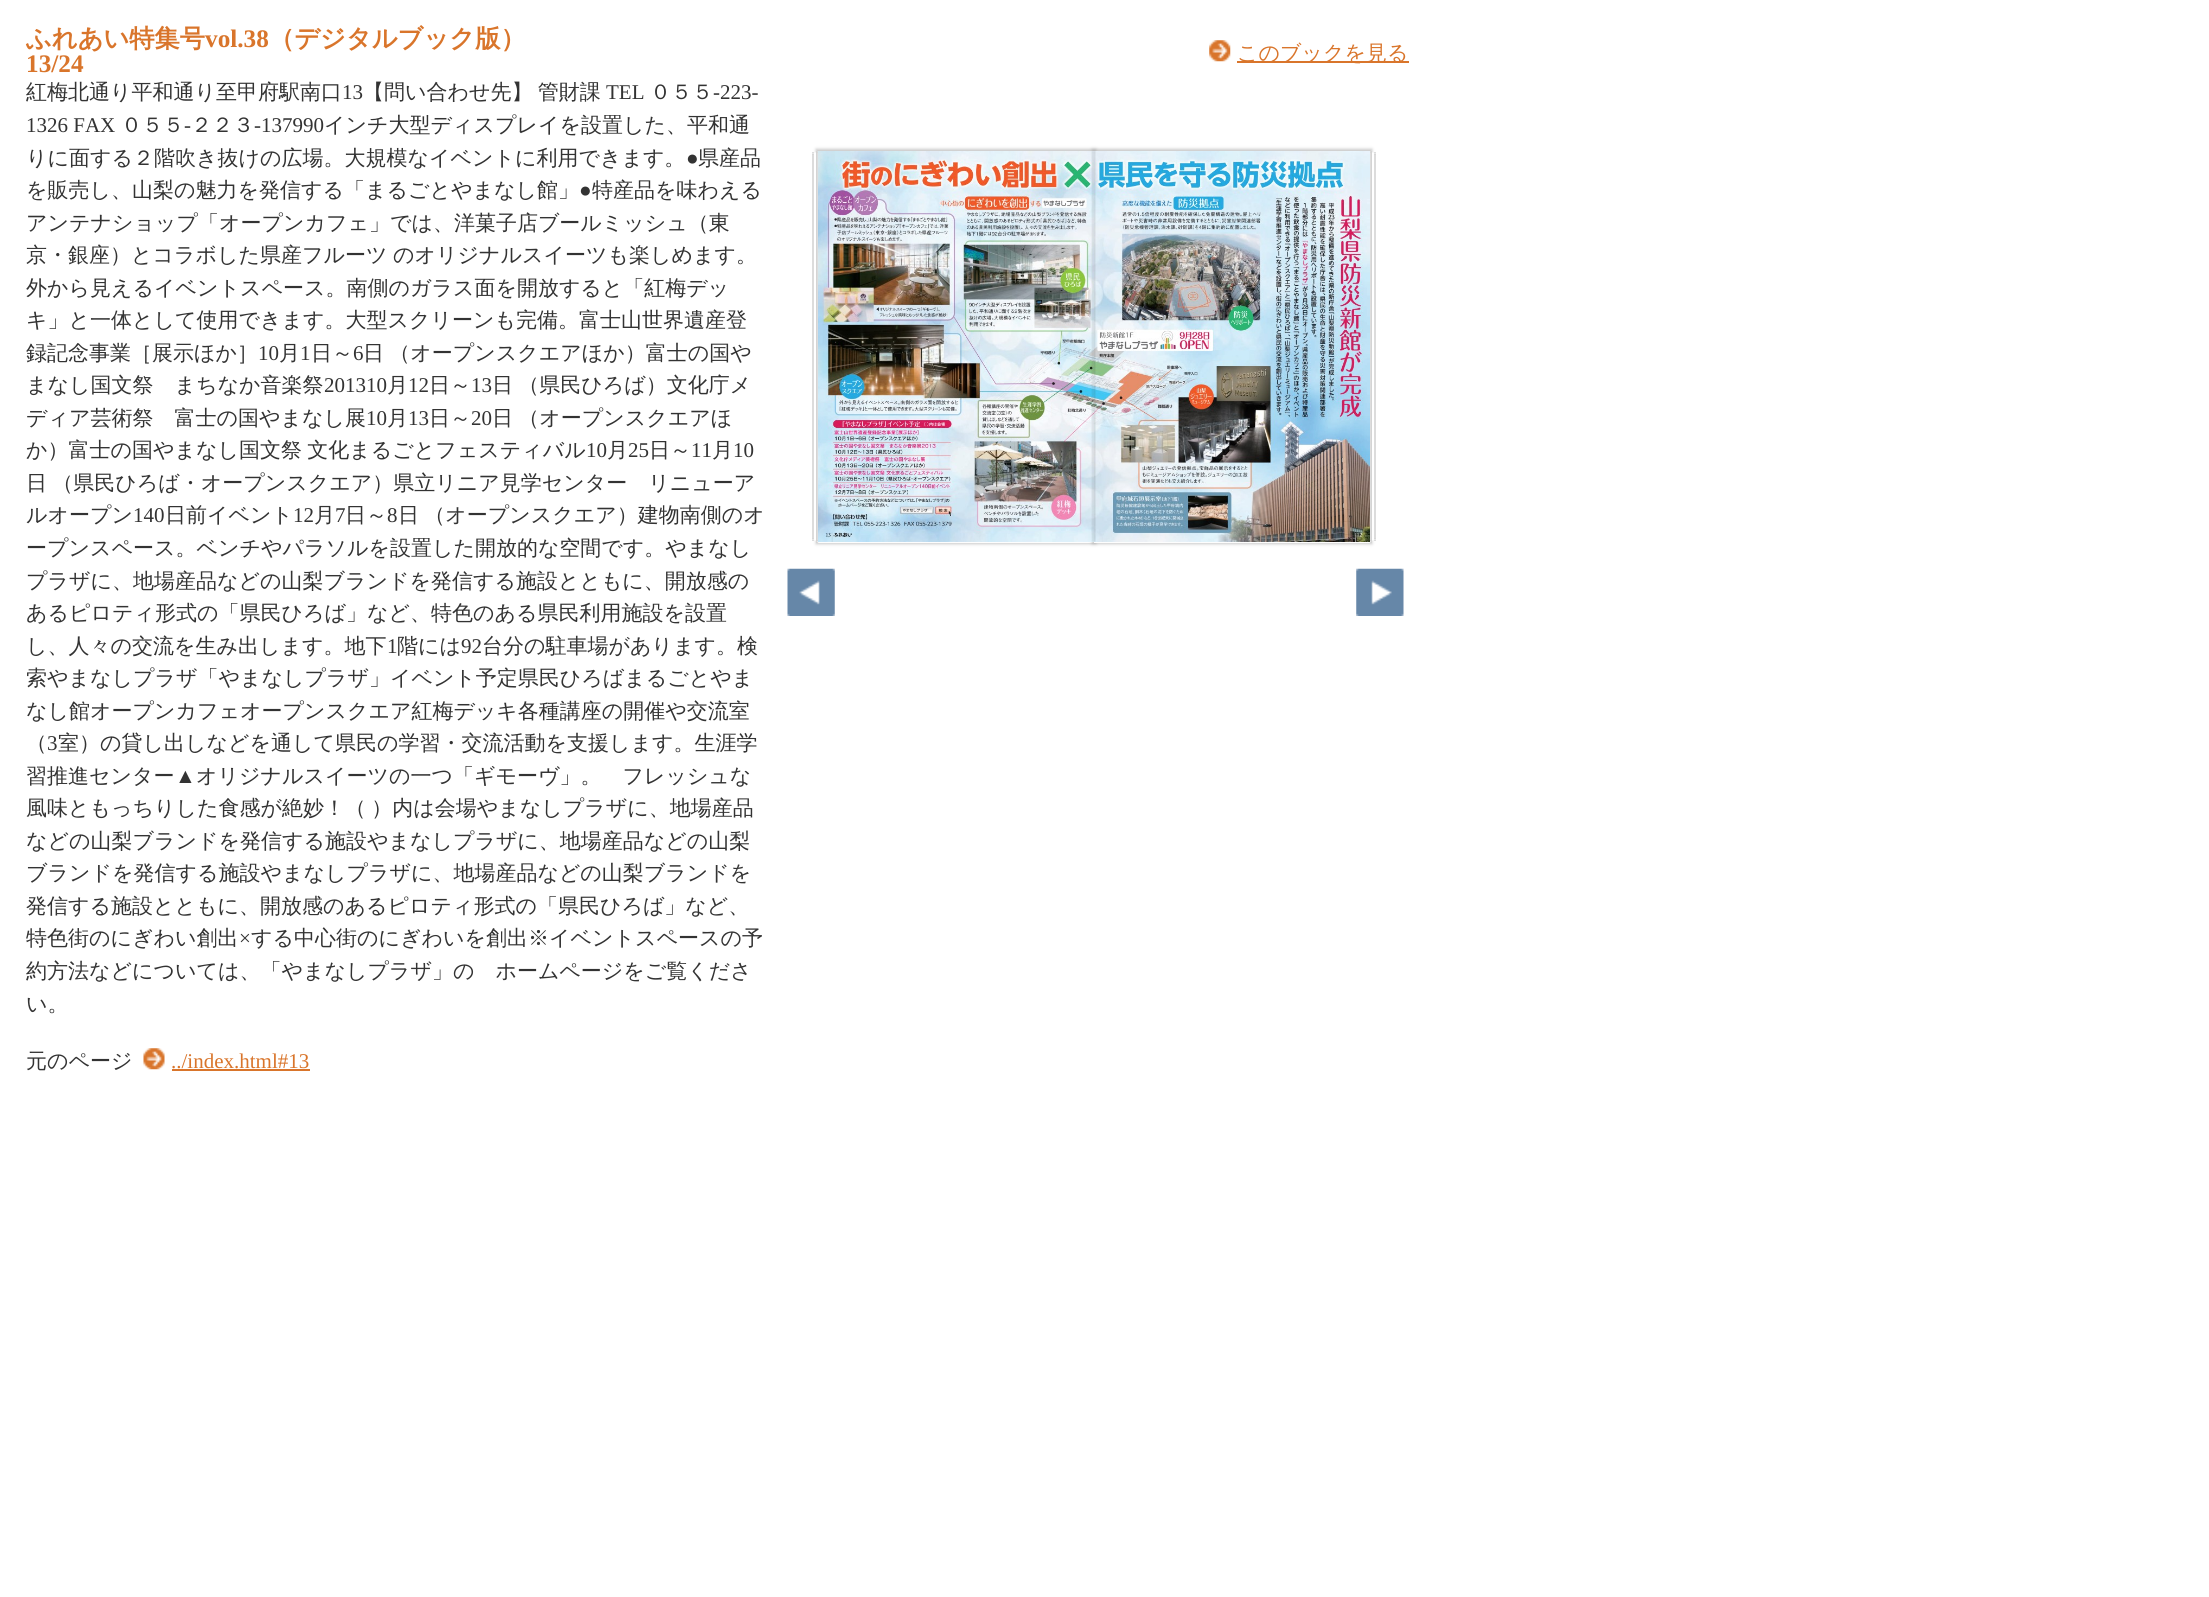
#include <cairo/cairo.h>
#include <math.h>
#include <stddef.h>

typedef struct { double x, y; const char *s; } line_t;
static cairo_t *cr;

static void rgb(unsigned color)
{
	cairo_set_source_rgb(cr, (color >> 16) / 255.0, (color >> 8 & 255) / 255.0, (color & 255) / 255.0);
}

static void tracked(double x, double y, const char *s, double letter, double word)
{
	cairo_move_to(cr, x, y);
	while (*s) {
		char ch[5] = {0};
		int n = 0;
		do ch[n++] = *s++; while ((*s & 0xC0) == 0x80);
		cairo_show_text(cr, ch);
		cairo_rel_move_to(cr, letter + word * (*ch == ' '), 0);
	}
}

static void rrect(double x, double y, double w, double h, double r)
{
	cairo_new_sub_path(cr);
	cairo_arc(cr, x + w - r, y + h - r, r, 0, M_PI / 2);
	cairo_arc(cr, x + r, y + h - r, r, M_PI / 2, M_PI);
	cairo_arc(cr, x + r, y + r, r, M_PI, 1.5 * M_PI);
	cairo_arc(cr, x + w - r, y + r, r, 1.5 * M_PI, 2 * M_PI);
	cairo_close_path(cr);
}

static void soft_shadow(double x, double y, double w, double h, double r, double blur, double alpha)
{
	cairo_push_group_with_content(cr, CAIRO_CONTENT_ALPHA);
	cairo_set_operator(cr, CAIRO_OPERATOR_SOURCE);
	for (int i = 15; i >= -15 && fmin(w, h) + blur * i / 3 > 0; i -= 2) {
		double e = blur * i / 6;
		cairo_set_source_rgba(cr, 0, 0, 0, alpha * erfc((i - 1) / 8.5) / 2);
		rrect(x - e, y - e, w + 2 * e, h + 2 * e, fmax(0, fmin(r + e + blur * .6, fmin(w, h) / 2 + e)));
		cairo_fill(cr);
	}
	cairo_pattern_t *soft = cairo_pop_group(cr);
	cairo_mask(cr, soft);
	cairo_pattern_destroy(soft);
}

static void image(const char *path, double x, double y, double w, double h)
{
	cairo_surface_t *image = cairo_image_surface_create_from_png(path);
	cairo_save(cr);
	cairo_set_source_surface(cr, image, x, y);
	cairo_rectangle(cr, x, y, w, h);
	cairo_fill(cr);
	cairo_restore(cr);
	cairo_surface_destroy(image);
}

int main(void) {
	cairo_surface_t *surface = cairo_image_surface_create(CAIRO_FORMAT_RGB24, 2209, 1597);
	cr = cairo_create(surface);
	cairo_font_options_t *options = cairo_font_options_create();
	cairo_font_options_set_hint_metrics(options, CAIRO_HINT_METRICS_OFF);
	cairo_font_options_set_hint_style(options, CAIRO_HINT_STYLE_NONE);
	cairo_set_font_options(cr, options);
	cairo_set_miter_limit(cr, 4);
	rgb(0xffffff);
	cairo_paint(cr);
	image("img/1.png", 143, 1048, 22, 22);
	rgb(0xd9752b);
	cairo_rectangle(cr, 172, 1069, 138, 2);
	cairo_fill(cr);
	image("img/2.png", 1209, 40, 22, 22);
	cairo_rectangle(cr, 1237, 61, 172, 2);
	cairo_fill(cr);
	rgb(0xababab);
	soft_shadow(816, 149, 280, 395, 0, 1.5, 0.65);
	rgb(0xfdfdfd);
	cairo_rectangle(cr, 817, 151, 277, 392);
	cairo_fill(cr);
	cairo_rectangle(cr, 817.25, 151.25, 1.5, 391.5);
	rgb(0xd2d2d2);
	cairo_set_line_width(cr, 0.5);
	cairo_stroke(cr);
	rgb(0xffffff);
	rrect(817, 151, 2, 392, 1);
	cairo_fill(cr);
	cairo_rectangle(cr, 816.25, 151.25, 1.5, 391.5);
	rgb(0xd2d2d2);
	cairo_stroke(cr);
	cairo_rectangle(cr, 812.25, 152.25, 1.5, 388.5);
	cairo_stroke(cr);
	cairo_rectangle(cr, 814.25, 152.25, 1.5, 388.5);
	cairo_stroke(cr);
	rgb(0xffffff);
	rrect(814, 152, 2, 389, 1);
	cairo_fill(cr);
	cairo_rectangle(cr, 812.25, 154.25, 1.5, 384.5);
	rgb(0xd2d2d2);
	cairo_stroke(cr);
	cairo_rectangle(cr, 816.25, 152.25, 1.5, 388.5);
	cairo_stroke(cr);
	rgb(0xababab);
	soft_shadow(1092, 149, 280, 395, 0, 1.5, 0.65);
	rgb(0xfdfdfd);
	cairo_rectangle(cr, 1094, 542, 276, 1);
	cairo_fill(cr);
	cairo_rectangle(cr, 1369.25, 151.25, 1.5, 391.5);
	rgb(0xd2d2d2);
	cairo_stroke(cr);
	rgb(0xffffff);
	rrect(1369, 151, 2, 392, 1);
	cairo_fill(cr);
	cairo_rectangle(cr, 1370.25, 151.25, 1.5, 391.5);
	rgb(0xd2d2d2);
	cairo_stroke(cr);
	cairo_rectangle(cr, 1370.25, 152.25, 1.5, 388.5);
	cairo_stroke(cr);
	cairo_rectangle(cr, 1372.25, 152.25, 1.5, 388.5);
	cairo_stroke(cr);
	rgb(0xffffff);
	rrect(1372, 152, 2, 389, 1);
	cairo_fill(cr);
	cairo_rectangle(cr, 1374.25, 152.25, 1.5, 388.5);
	rgb(0xd2d2d2);
	cairo_stroke(cr);
	cairo_rectangle(cr, 1374.25, 154.25, 1.5, 384.5);
	cairo_stroke(cr);
	image("img/3.png", 818, 151, 276, 391);
	image("img/4.png", 1091, 151, 3, 391);
	image("img/5.png", 1094, 151, 276, 391);
	image("img/6.png", 1094, 151, 2, 391);
	image("img/7.png", 787, 568, 48, 48);
	image("img/8.png", 1356, 568, 48, 48);
	cairo_select_font_face(cr, "WenQuanYi Zen Hei", CAIRO_FONT_SLANT_NORMAL, CAIRO_FONT_WEIGHT_BOLD);
	cairo_set_font_size(cr, 25.25);
	rgb(0xd9752b);
	cairo_move_to(cr, 26, 47);
	cairo_show_text(cr, "ふれあい特集号");
	cairo_select_font_face(cr, "Liberation Serif", CAIRO_FONT_SLANT_NORMAL, CAIRO_FONT_WEIGHT_BOLD);
	cairo_move_to(cr, 205, 47);
	cairo_show_text(cr, "vol.38");
	cairo_select_font_face(cr, "WenQuanYi Zen Hei", CAIRO_FONT_SLANT_NORMAL, CAIRO_FONT_WEIGHT_BOLD);
	cairo_move_to(cr, 269, 47);
	cairo_show_text(cr, "（デジタルブック版）");
	cairo_select_font_face(cr, "Liberation Serif", CAIRO_FONT_SLANT_NORMAL, CAIRO_FONT_WEIGHT_BOLD);
	cairo_move_to(cr, 26, 72);
	cairo_show_text(cr, "13/24");
	cairo_select_font_face(cr, "WenQuanYi Zen Hei Medium", CAIRO_FONT_SLANT_NORMAL, CAIRO_FONT_WEIGHT_NORMAL);
	cairo_set_font_size(cr, 21);
	rgb(0x333333);
	cairo_move_to(cr, 26, 99);
	cairo_show_text(cr, "紅梅北通り平和通り至甲府駅南口");
	cairo_select_font_face(cr, "Liberation Serif", CAIRO_FONT_SLANT_NORMAL, CAIRO_FONT_WEIGHT_NORMAL);
	cairo_move_to(cr, 342, 99);
	cairo_show_text(cr, "13");
	cairo_select_font_face(cr, "WenQuanYi Zen Hei Medium", CAIRO_FONT_SLANT_NORMAL, CAIRO_FONT_WEIGHT_NORMAL);
	tracked(363, 99, "【問い合わせ先】 管財課", 0, -1);
	cairo_select_font_face(cr, "Liberation Serif", CAIRO_FONT_SLANT_NORMAL, CAIRO_FONT_WEIGHT_NORMAL);
	cairo_move_to(cr, 606, 99);
	cairo_show_text(cr, "TEL");
	cairo_select_font_face(cr, "WenQuanYi Zen Hei Medium", CAIRO_FONT_SLANT_NORMAL, CAIRO_FONT_WEIGHT_NORMAL);
	cairo_move_to(cr, 650, 99);
	cairo_show_text(cr, "０５５");
	cairo_select_font_face(cr, "Liberation Serif", CAIRO_FONT_SLANT_NORMAL, CAIRO_FONT_WEIGHT_NORMAL);
	cairo_move_to(cr, 713, 99);
	cairo_show_text(cr, "-223-");
	cairo_move_to(cr, 26, 132);
	cairo_show_text(cr, "1326 FAX");
	cairo_select_font_face(cr, "WenQuanYi Zen Hei Medium", CAIRO_FONT_SLANT_NORMAL, CAIRO_FONT_WEIGHT_NORMAL);
	cairo_move_to(cr, 121, 132);
	cairo_show_text(cr, "０５５");
	cairo_select_font_face(cr, "Liberation Serif", CAIRO_FONT_SLANT_NORMAL, CAIRO_FONT_WEIGHT_NORMAL);
	cairo_move_to(cr, 184, 132);
	cairo_show_text(cr, "-");
	cairo_select_font_face(cr, "WenQuanYi Zen Hei Medium", CAIRO_FONT_SLANT_NORMAL, CAIRO_FONT_WEIGHT_NORMAL);
	cairo_move_to(cr, 191, 132);
	cairo_show_text(cr, "２２３");
	cairo_select_font_face(cr, "Liberation Serif", CAIRO_FONT_SLANT_NORMAL, CAIRO_FONT_WEIGHT_NORMAL);
	cairo_move_to(cr, 254, 132);
	cairo_show_text(cr, "-137990");
	cairo_select_font_face(cr, "WenQuanYi Zen Hei Medium", CAIRO_FONT_SLANT_NORMAL, CAIRO_FONT_WEIGHT_NORMAL);
	cairo_move_to(cr, 324, 132);
	cairo_show_text(cr, "インチ大型ディスプレイを設置した、平和通");
	cairo_move_to(cr, 26, 165);
	cairo_show_text(cr, "りに面する２階吹き抜けの広場。大規模なイベントに利用できます。");
	cairo_select_font_face(cr, "Liberation Serif", CAIRO_FONT_SLANT_NORMAL, CAIRO_FONT_WEIGHT_NORMAL);
	cairo_move_to(cr, 686, 165);
	cairo_show_text(cr, "●");
	cairo_select_font_face(cr, "WenQuanYi Zen Hei Medium", CAIRO_FONT_SLANT_NORMAL, CAIRO_FONT_WEIGHT_NORMAL);
	cairo_move_to(cr, 698, 165);
	cairo_show_text(cr, "県産品");
	cairo_move_to(cr, 26, 197);
	cairo_show_text(cr, "を販売し、山梨の魅力を発信する「まるごとやまなし館」");
	cairo_select_font_face(cr, "Liberation Serif", CAIRO_FONT_SLANT_NORMAL, CAIRO_FONT_WEIGHT_NORMAL);
	cairo_move_to(cr, 579, 197);
	cairo_show_text(cr, "●");
	cairo_select_font_face(cr, "WenQuanYi Zen Hei Medium", CAIRO_FONT_SLANT_NORMAL, CAIRO_FONT_WEIGHT_NORMAL);
	{
		static const line_t items[] = {
			{592, 197, "特産品を味わえる"},
			{26, 230, "アンテナショップ「オープンカフェ」では、洋菓子店ブールミッシュ（東"},
			{26, 262, "京・銀座）とコラボした県産フルーツ"},
			{393, 262, "のオリジナルスイーツも楽しめます。"},
			{26, 295, "外から見えるイベントスペース。南側のガラス面を開放すると「紅梅デッ"},
			{26, 327, "キ」と一体として使用できます。大型スクリーンも完備。富士山世界遺産登"},
			{26, 360, "録記念事業［展示ほか］"},
		};
		for (size_t i = 0; i < sizeof items / sizeof *items; i++) {
			cairo_move_to(cr, items[i].x, items[i].y);
			cairo_show_text(cr, items[i].s);
		}
	}
	cairo_select_font_face(cr, "Liberation Serif", CAIRO_FONT_SLANT_NORMAL, CAIRO_FONT_WEIGHT_NORMAL);
	cairo_move_to(cr, 258, 360);
	cairo_show_text(cr, "10");
	cairo_select_font_face(cr, "WenQuanYi Zen Hei Medium", CAIRO_FONT_SLANT_NORMAL, CAIRO_FONT_WEIGHT_NORMAL);
	cairo_move_to(cr, 279, 360);
	cairo_show_text(cr, "月");
	cairo_select_font_face(cr, "Liberation Serif", CAIRO_FONT_SLANT_NORMAL, CAIRO_FONT_WEIGHT_NORMAL);
	cairo_move_to(cr, 300, 360);
	cairo_show_text(cr, "1");
	cairo_select_font_face(cr, "WenQuanYi Zen Hei Medium", CAIRO_FONT_SLANT_NORMAL, CAIRO_FONT_WEIGHT_NORMAL);
	cairo_move_to(cr, 311, 360);
	cairo_show_text(cr, "日～");
	cairo_select_font_face(cr, "Liberation Serif", CAIRO_FONT_SLANT_NORMAL, CAIRO_FONT_WEIGHT_NORMAL);
	cairo_move_to(cr, 353, 360);
	cairo_show_text(cr, "6");
	cairo_select_font_face(cr, "WenQuanYi Zen Hei Medium", CAIRO_FONT_SLANT_NORMAL, CAIRO_FONT_WEIGHT_NORMAL);
	tracked(363, 360, "日 （オープンスクエアほか）富士の国や", 0, -1);
	cairo_move_to(cr, 26, 392);
	cairo_show_text(cr, "まなし国文祭　まちなか音楽祭");
	cairo_select_font_face(cr, "Liberation Serif", CAIRO_FONT_SLANT_NORMAL, CAIRO_FONT_WEIGHT_NORMAL);
	cairo_move_to(cr, 324, 392);
	cairo_show_text(cr, "201310");
	cairo_select_font_face(cr, "WenQuanYi Zen Hei Medium", CAIRO_FONT_SLANT_NORMAL, CAIRO_FONT_WEIGHT_NORMAL);
	cairo_move_to(cr, 387, 392);
	cairo_show_text(cr, "月");
	cairo_select_font_face(cr, "Liberation Serif", CAIRO_FONT_SLANT_NORMAL, CAIRO_FONT_WEIGHT_NORMAL);
	cairo_move_to(cr, 408, 392);
	cairo_show_text(cr, "12");
	cairo_select_font_face(cr, "WenQuanYi Zen Hei Medium", CAIRO_FONT_SLANT_NORMAL, CAIRO_FONT_WEIGHT_NORMAL);
	cairo_move_to(cr, 429, 392);
	cairo_show_text(cr, "日～");
	cairo_select_font_face(cr, "Liberation Serif", CAIRO_FONT_SLANT_NORMAL, CAIRO_FONT_WEIGHT_NORMAL);
	cairo_move_to(cr, 471, 392);
	cairo_show_text(cr, "13");
	cairo_select_font_face(cr, "WenQuanYi Zen Hei Medium", CAIRO_FONT_SLANT_NORMAL, CAIRO_FONT_WEIGHT_NORMAL);
	tracked(492, 392, "日 （県民ひろば）文化庁メ", 0, -1);
	cairo_move_to(cr, 26, 425);
	cairo_show_text(cr, "ディア芸術祭　富士の国やまなし展");
	cairo_select_font_face(cr, "Liberation Serif", CAIRO_FONT_SLANT_NORMAL, CAIRO_FONT_WEIGHT_NORMAL);
	cairo_move_to(cr, 366, 425);
	cairo_show_text(cr, "10");
	cairo_select_font_face(cr, "WenQuanYi Zen Hei Medium", CAIRO_FONT_SLANT_NORMAL, CAIRO_FONT_WEIGHT_NORMAL);
	cairo_move_to(cr, 387, 425);
	cairo_show_text(cr, "月");
	cairo_select_font_face(cr, "Liberation Serif", CAIRO_FONT_SLANT_NORMAL, CAIRO_FONT_WEIGHT_NORMAL);
	cairo_move_to(cr, 408, 425);
	cairo_show_text(cr, "13");
	cairo_select_font_face(cr, "WenQuanYi Zen Hei Medium", CAIRO_FONT_SLANT_NORMAL, CAIRO_FONT_WEIGHT_NORMAL);
	cairo_move_to(cr, 429, 425);
	cairo_show_text(cr, "日～");
	cairo_select_font_face(cr, "Liberation Serif", CAIRO_FONT_SLANT_NORMAL, CAIRO_FONT_WEIGHT_NORMAL);
	cairo_move_to(cr, 471, 425);
	cairo_show_text(cr, "20");
	cairo_select_font_face(cr, "WenQuanYi Zen Hei Medium", CAIRO_FONT_SLANT_NORMAL, CAIRO_FONT_WEIGHT_NORMAL);
	tracked(492, 425, "日 （オープンスクエアほ", 0, -1);
	tracked(26, 457, "か）富士の国やまなし国文祭 文化まるごとフェスティバル", 0, -1);
	cairo_select_font_face(cr, "Liberation Serif", CAIRO_FONT_SLANT_NORMAL, CAIRO_FONT_WEIGHT_NORMAL);
	cairo_move_to(cr, 586, 457);
	cairo_show_text(cr, "10");
	cairo_select_font_face(cr, "WenQuanYi Zen Hei Medium", CAIRO_FONT_SLANT_NORMAL, CAIRO_FONT_WEIGHT_NORMAL);
	cairo_move_to(cr, 607, 457);
	cairo_show_text(cr, "月");
	cairo_select_font_face(cr, "Liberation Serif", CAIRO_FONT_SLANT_NORMAL, CAIRO_FONT_WEIGHT_NORMAL);
	cairo_move_to(cr, 628, 457);
	cairo_show_text(cr, "25");
	cairo_select_font_face(cr, "WenQuanYi Zen Hei Medium", CAIRO_FONT_SLANT_NORMAL, CAIRO_FONT_WEIGHT_NORMAL);
	cairo_move_to(cr, 649, 457);
	cairo_show_text(cr, "日～");
	cairo_select_font_face(cr, "Liberation Serif", CAIRO_FONT_SLANT_NORMAL, CAIRO_FONT_WEIGHT_NORMAL);
	cairo_move_to(cr, 691, 457);
	cairo_show_text(cr, "11");
	cairo_select_font_face(cr, "WenQuanYi Zen Hei Medium", CAIRO_FONT_SLANT_NORMAL, CAIRO_FONT_WEIGHT_NORMAL);
	cairo_move_to(cr, 712, 457);
	cairo_show_text(cr, "月");
	cairo_select_font_face(cr, "Liberation Serif", CAIRO_FONT_SLANT_NORMAL, CAIRO_FONT_WEIGHT_NORMAL);
	cairo_move_to(cr, 733, 457);
	cairo_show_text(cr, "10");
	cairo_select_font_face(cr, "WenQuanYi Zen Hei Medium", CAIRO_FONT_SLANT_NORMAL, CAIRO_FONT_WEIGHT_NORMAL);
	tracked(26, 490, "日 （県民ひろば・オープンスクエア）県立リニア見学センター　リニューア", 0, -1);
	cairo_move_to(cr, 26, 522);
	cairo_show_text(cr, "ルオープン");
	cairo_select_font_face(cr, "Liberation Serif", CAIRO_FONT_SLANT_NORMAL, CAIRO_FONT_WEIGHT_NORMAL);
	cairo_move_to(cr, 133, 522);
	cairo_show_text(cr, "140");
	cairo_select_font_face(cr, "WenQuanYi Zen Hei Medium", CAIRO_FONT_SLANT_NORMAL, CAIRO_FONT_WEIGHT_NORMAL);
	cairo_move_to(cr, 165, 522);
	cairo_show_text(cr, "日前イベント");
	cairo_select_font_face(cr, "Liberation Serif", CAIRO_FONT_SLANT_NORMAL, CAIRO_FONT_WEIGHT_NORMAL);
	cairo_move_to(cr, 293, 522);
	cairo_show_text(cr, "12");
	cairo_select_font_face(cr, "WenQuanYi Zen Hei Medium", CAIRO_FONT_SLANT_NORMAL, CAIRO_FONT_WEIGHT_NORMAL);
	cairo_move_to(cr, 314, 522);
	cairo_show_text(cr, "月");
	cairo_select_font_face(cr, "Liberation Serif", CAIRO_FONT_SLANT_NORMAL, CAIRO_FONT_WEIGHT_NORMAL);
	cairo_move_to(cr, 335, 522);
	cairo_show_text(cr, "7");
	cairo_select_font_face(cr, "WenQuanYi Zen Hei Medium", CAIRO_FONT_SLANT_NORMAL, CAIRO_FONT_WEIGHT_NORMAL);
	cairo_move_to(cr, 345, 522);
	cairo_show_text(cr, "日～");
	cairo_select_font_face(cr, "Liberation Serif", CAIRO_FONT_SLANT_NORMAL, CAIRO_FONT_WEIGHT_NORMAL);
	cairo_move_to(cr, 387, 522);
	cairo_show_text(cr, "8");
	cairo_select_font_face(cr, "WenQuanYi Zen Hei Medium", CAIRO_FONT_SLANT_NORMAL, CAIRO_FONT_WEIGHT_NORMAL);
	tracked(398, 522, "日 （オープンスクエア）建物南側のオ", 0, -1);
	{
		static const line_t items[] = {
			{26, 555, "ープンスペース。ベンチやパラソルを設置した開放的な空間です。やまなし"},
			{26, 588, "プラザに、地場産品などの山梨ブランドを発信する施設とともに、開放感の"},
			{26, 620, "あるピロティ形式の「県民ひろば」など、特色のある県民利用施設を設置"},
			{26, 653, "し、人々の交流を生み出します。地下"},
		};
		for (size_t i = 0; i < sizeof items / sizeof *items; i++) {
			cairo_move_to(cr, items[i].x, items[i].y);
			cairo_show_text(cr, items[i].s);
		}
	}
	cairo_select_font_face(cr, "Liberation Serif", CAIRO_FONT_SLANT_NORMAL, CAIRO_FONT_WEIGHT_NORMAL);
	cairo_move_to(cr, 387, 653);
	cairo_show_text(cr, "1");
	cairo_select_font_face(cr, "WenQuanYi Zen Hei Medium", CAIRO_FONT_SLANT_NORMAL, CAIRO_FONT_WEIGHT_NORMAL);
	cairo_move_to(cr, 397, 653);
	cairo_show_text(cr, "階には");
	cairo_select_font_face(cr, "Liberation Serif", CAIRO_FONT_SLANT_NORMAL, CAIRO_FONT_WEIGHT_NORMAL);
	cairo_move_to(cr, 461, 653);
	cairo_show_text(cr, "92");
	cairo_select_font_face(cr, "WenQuanYi Zen Hei Medium", CAIRO_FONT_SLANT_NORMAL, CAIRO_FONT_WEIGHT_NORMAL);
	{
		static const line_t items[] = {
			{482, 653, "台分の駐車場があります。検"},
			{26, 685, "索やまなしプラザ「やまなしプラザ」イベント予定県民ひろばまるごとやま"},
			{26, 718, "なし館オープンカフェオープンスクエア紅梅デッキ各種講座の開催や交流室"},
			{26, 750, "（"},
		};
		for (size_t i = 0; i < sizeof items / sizeof *items; i++) {
			cairo_move_to(cr, items[i].x, items[i].y);
			cairo_show_text(cr, items[i].s);
		}
	}
	cairo_select_font_face(cr, "Liberation Serif", CAIRO_FONT_SLANT_NORMAL, CAIRO_FONT_WEIGHT_NORMAL);
	cairo_move_to(cr, 47, 750);
	cairo_show_text(cr, "3");
	cairo_select_font_face(cr, "WenQuanYi Zen Hei Medium", CAIRO_FONT_SLANT_NORMAL, CAIRO_FONT_WEIGHT_NORMAL);
	cairo_move_to(cr, 58, 750);
	cairo_show_text(cr, "室）の貸し出しなどを通して県民の学習・交流活動を支援します。生涯学");
	cairo_move_to(cr, 26, 783);
	cairo_show_text(cr, "習推進センター");
	cairo_select_font_face(cr, "Liberation Serif", CAIRO_FONT_SLANT_NORMAL, CAIRO_FONT_WEIGHT_NORMAL);
	cairo_move_to(cr, 175, 783);
	cairo_show_text(cr, "▲");
	cairo_select_font_face(cr, "WenQuanYi Zen Hei Medium", CAIRO_FONT_SLANT_NORMAL, CAIRO_FONT_WEIGHT_NORMAL);
	cairo_move_to(cr, 196, 783);
	cairo_show_text(cr, "オリジナルスイーツの一つ「ギモーヴ」。　フレッシュな");
	tracked(26, 815, "風味ともっちりした食感が絶妙！（ ）内は会場やまなしプラザに、地場産品", 0, -1);
	{
		static const line_t items[] = {
			{26, 848, "などの山梨ブランドを発信する施設やまなしプラザに、地場産品などの山梨"},
			{26, 880, "ブランドを発信する施設やまなしプラザに、地場産品などの山梨ブランドを"},
			{26, 913, "発信する施設とともに、開放感のあるピロティ形式の「県民ひろば」など、"},
			{26, 945, "特色街のにぎわい創出"},
		};
		for (size_t i = 0; i < sizeof items / sizeof *items; i++) {
			cairo_move_to(cr, items[i].x, items[i].y);
			cairo_show_text(cr, items[i].s);
		}
	}
	cairo_select_font_face(cr, "Liberation Serif", CAIRO_FONT_SLANT_NORMAL, CAIRO_FONT_WEIGHT_NORMAL);
	cairo_move_to(cr, 239, 945);
	cairo_show_text(cr, "×");
	cairo_select_font_face(cr, "WenQuanYi Zen Hei Medium", CAIRO_FONT_SLANT_NORMAL, CAIRO_FONT_WEIGHT_NORMAL);
	{
		static const line_t items[] = {
			{251, 945, "する中心街のにぎわいを創出※イベントスペースの予"},
			{26, 978, "約方法などについては、「やまなしプラザ」の　ホームページをご覧くださ"},
			{26, 1011, "い。"},
			{26, 1068, "元のページ"},
		};
		for (size_t i = 0; i < sizeof items / sizeof *items; i++) {
			cairo_move_to(cr, items[i].x, items[i].y);
			cairo_show_text(cr, items[i].s);
		}
	}
	cairo_select_font_face(cr, "Liberation Serif", CAIRO_FONT_SLANT_NORMAL, CAIRO_FONT_WEIGHT_NORMAL);
	rgb(0xd9752b);
	cairo_move_to(cr, 171, 1068);
	cairo_show_text(cr, "../index.html#13");
	cairo_select_font_face(cr, "WenQuanYi Zen Hei Medium", CAIRO_FONT_SLANT_NORMAL, CAIRO_FONT_WEIGHT_NORMAL);
	cairo_move_to(cr, 1237, 60);
	cairo_show_text(cr, "このブックを見る");
	cairo_surface_write_to_png(surface, "page.png");
	cairo_font_options_destroy(options);
	cairo_destroy(cr);
	cairo_surface_destroy(surface);
	return 0;
}
